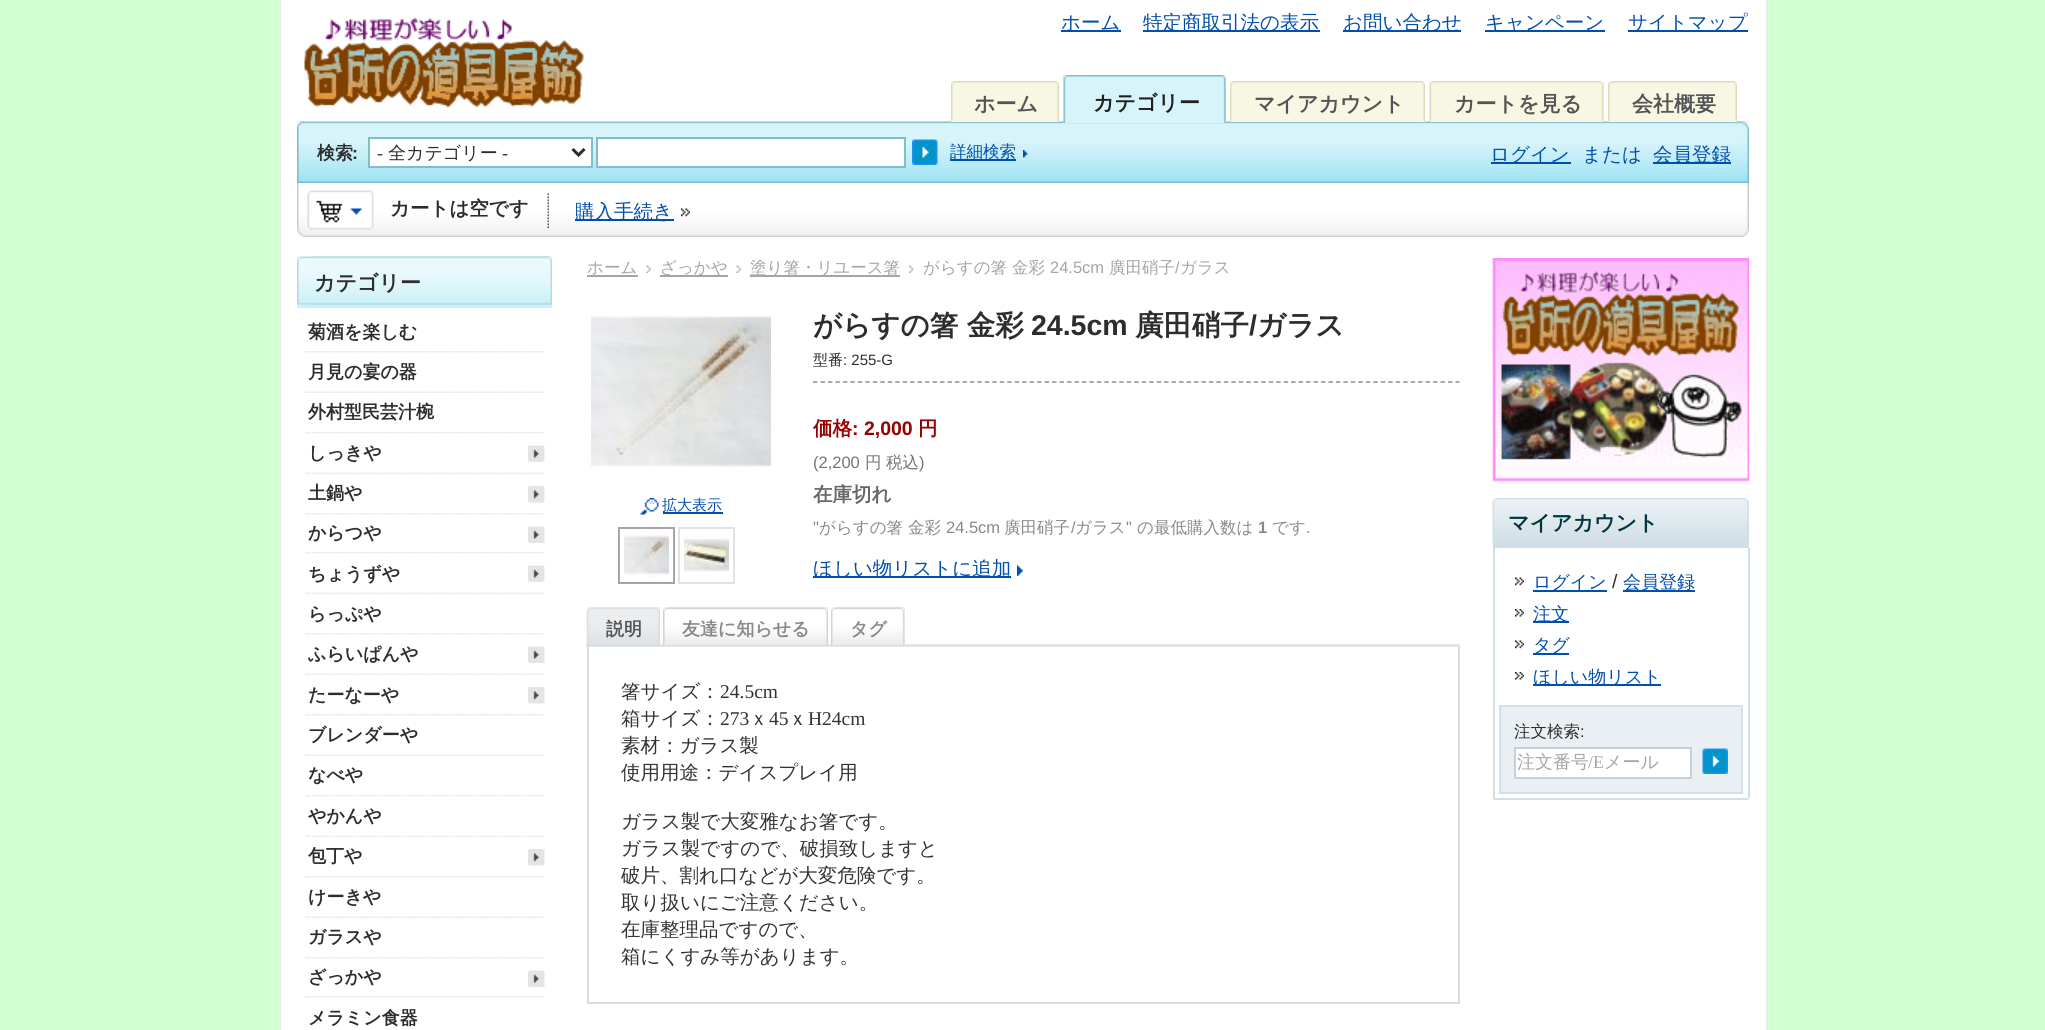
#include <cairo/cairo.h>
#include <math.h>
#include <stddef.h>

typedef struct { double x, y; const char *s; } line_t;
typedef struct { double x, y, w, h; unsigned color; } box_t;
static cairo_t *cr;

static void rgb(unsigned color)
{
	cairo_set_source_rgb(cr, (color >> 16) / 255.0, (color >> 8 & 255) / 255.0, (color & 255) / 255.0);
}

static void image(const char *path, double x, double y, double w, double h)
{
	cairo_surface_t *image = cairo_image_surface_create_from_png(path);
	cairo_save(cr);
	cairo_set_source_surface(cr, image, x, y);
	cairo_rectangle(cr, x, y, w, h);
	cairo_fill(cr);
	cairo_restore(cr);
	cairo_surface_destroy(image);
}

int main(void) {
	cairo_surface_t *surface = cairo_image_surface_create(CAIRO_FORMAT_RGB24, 2045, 1030);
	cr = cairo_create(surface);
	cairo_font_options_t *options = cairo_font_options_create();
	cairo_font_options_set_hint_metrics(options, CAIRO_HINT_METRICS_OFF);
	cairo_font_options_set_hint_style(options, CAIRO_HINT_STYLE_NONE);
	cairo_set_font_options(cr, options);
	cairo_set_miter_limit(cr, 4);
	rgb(0xd2ffd2);
	cairo_paint(cr);
	{
		static const box_t items[] = {
			{281, 0, 1485, 1030, 0xffffff},
			{1766, 0, 2, 1030, 0xe3ebf0},
			{279, 0, 2, 1030, 0xe3ebf0},
		};
		for (size_t i = 0; i < sizeof items / sizeof *items; i++) {
			rgb(items[i].color);
			cairo_rectangle(cr, items[i].x, items[i].y, items[i].w, items[i].h);
			cairo_fill(cr);
		}
	}
	image("img/1.png", 304, 17, 280, 92);
	{
		static const box_t items[] = {
			{1061, 30, 60, 2, 0x014ead},
			{1143, 30, 177, 2, 0x014ead},
			{1343, 30, 118, 2, 0x014ead},
			{1485, 30, 120, 2, 0x014ead},
			{1628, 30, 120, 2, 0x014ead},
		};
		for (size_t i = 0; i < sizeof items / sizeof *items; i++) {
			rgb(items[i].color);
			cairo_rectangle(cr, items[i].x, items[i].y, items[i].w, items[i].h);
			cairo_fill(cr);
		}
	}
	image("img/12.png", 297, 121, 1452, 62);
	rgb(0xf7f7e3);
	cairo_rectangle(cr, 951, 121, 108, 1);
	cairo_fill(cr);
	image("img/2.png", 951, 81, 108, 41);
	image("img/3.png", 951, 81, 105, 41);
	rgb(0xcaf0f9);
	cairo_rectangle(cr, 1225, 75, 1, 48);
	cairo_fill(cr);
	image("img/4.png", 1063, 75, 163, 48);
	image("img/5.png", 1063, 75, 160, 48);
	rgb(0xf7f7e3);
	cairo_rectangle(cr, 1230, 121, 195, 1);
	cairo_fill(cr);
	image("img/6.png", 1230, 81, 195, 41);
	image("img/7.png", 1230, 81, 192, 41);
	cairo_rectangle(cr, 1430, 81, 174, 41);
	cairo_fill(cr);
	image("img/8.png", 1429, 81, 175, 41);
	image("img/9.png", 1429, 81, 172, 41);
	cairo_rectangle(cr, 1608, 121, 129, 1);
	cairo_fill(cr);
	image("img/10.png", 1608, 81, 129, 41);
	image("img/11.png", 1608, 81, 126, 41);
	image("img/13.png", 297, 121, 8, 61);
	rgb(0xffffff);
	cairo_rectangle(cr, 369, 138, 223, 29);
	cairo_fill_preserve(cr);
	rgb(0x83bdcb);
	cairo_stroke(cr);
	cairo_new_path(cr);
	cairo_move_to(cr, 572.5, 149);
	cairo_line_to(cr, 578.5, 155);
	cairo_line_to(cr, 584.5, 149);
	rgb(0x2d2d2d);
	cairo_set_line_width(cr, 3);
	cairo_stroke(cr);
	rgb(0xffffff);
	cairo_rectangle(cr, 597, 138, 308, 29);
	cairo_fill_preserve(cr);
	rgb(0x83bdcb);
	cairo_set_line_width(cr, 2);
	cairo_stroke(cr);
	image("img/14.png", 912, 139, 26, 26);
	rgb(0x014ead);
	cairo_rectangle(cr, 950, 159, 66, 2);
	cairo_fill(cr);
	image("img/15.png", 1023, 150, 5, 8);
	cairo_rectangle(cr, 1491, 162, 80, 2);
	cairo_fill(cr);
	cairo_rectangle(cr, 1653, 162, 78, 2);
	cairo_fill(cr);
	image("img/16.png", 1741, 121, 8, 61);
	image("img/17.png", 304, 183, 1438, 54);
	image("img/18.png", 297, 183, 8, 54);
	image("img/19.png", 547, 193, 2, 35);
	image("img/20.png", 307, 190, 67, 40);
	cairo_rectangle(cr, 575, 219, 99, 2);
	cairo_fill(cr);
	image("img/21.png", 681, 208, 9, 9);
	image("img/22.png", 1742, 183, 7, 54);
	rgb(0xcbf1f7);
	cairo_rectangle(cr, 297, 304, 255, 4);
	cairo_fill(cr);
	image("img/23.png", 297, 256, 255, 49);
	image("img/24.png", 313, 256, 239, 49);
	image("img/25.png", 304, 351, 241, 2);
	image("img/26.png", 304, 391, 241, 2);
	image("img/25.png", 304, 432, 241, 2);
	image("img/27.png", 528, 445, 17, 17);
	image("img/26.png", 304, 472, 241, 2);
	image("img/28.png", 528, 486, 17, 17);
	image("img/25.png", 304, 513, 241, 2);
	image("img/27.png", 528, 526, 17, 17);
	image("img/25.png", 304, 552, 241, 2);
	image("img/27.png", 528, 565, 17, 17);
	image("img/26.png", 304, 592, 241, 2);
	image("img/25.png", 304, 633, 241, 2);
	image("img/27.png", 528, 646, 17, 17);
	image("img/26.png", 304, 673, 241, 2);
	image("img/28.png", 528, 687, 17, 17);
	image("img/25.png", 304, 714, 241, 2);
	image("img/26.png", 304, 754, 241, 2);
	image("img/25.png", 304, 795, 241, 2);
	image("img/26.png", 304, 835, 241, 2);
	image("img/28.png", 528, 849, 17, 17);
	image("img/25.png", 304, 876, 241, 2);
	image("img/26.png", 304, 916, 241, 2);
	image("img/25.png", 304, 957, 241, 2);
	image("img/27.png", 528, 970, 17, 17);
	image("img/25.png", 304, 996, 241, 2);
	rgb(0xa5a5a5);
	cairo_rectangle(cr, 587, 275, 51, 2);
	cairo_fill(cr);
	image("img/29.png", 646, 265, 5, 8);
	cairo_rectangle(cr, 660, 275, 68, 2);
	cairo_fill(cr);
	image("img/29.png", 736, 265, 5, 8);
	cairo_rectangle(cr, 750, 275, 150, 2);
	cairo_fill(cr);
	image("img/30.png", 909, 265, 5, 8);
	image("img/31.png", 591, 316, 180, 152);
	image("img/32.png", 640, 498, 19, 17);
	rgb(0x014ead);
	cairo_rectangle(cr, 663, 512, 60, 2);
	cairo_fill(cr);
	cairo_rectangle(cr, 619, 528, 55, 55);
	rgb(0xa5a5a5);
	cairo_stroke(cr);
	image("img/33.png", 624, 532, 45, 45);
	cairo_rectangle(cr, 679, 528, 55, 55);
	rgb(0xe2e2e2);
	cairo_stroke(cr);
	image("img/34.png", 684, 532, 45, 40);
	cairo_new_path(cr);
	cairo_move_to(cr, 813, 382);
	cairo_line_to(cr, 1459.5, 382);
	rgb(0x909090);
	cairo_set_line_width(cr, 1.5);
	cairo_set_dash(cr, (double[]){4.5, 2.97}, 2, 0);
	cairo_stroke(cr);
	rgb(0x014ead);
	cairo_rectangle(cr, 813, 576, 198, 2);
	cairo_fill(cr);
	image("img/35.png", 1017, 565, 6, 11);
	rgb(0xe3e4e6);
	cairo_rectangle(cr, 586, 644, 874, 3);
	cairo_fill(cr);
	rgb(0xdfe2e5);
	cairo_rectangle(cr, 587, 646, 73, 1);
	cairo_fill(cr);
	image("img/36.png", 586, 607, 74, 39);
	image("img/37.png", 591, 607, 69, 38);
	rgb(0xececec);
	cairo_rectangle(cr, 663, 646, 165, 1);
	cairo_fill(cr);
	image("img/38.png", 663, 607, 165, 40);
	image("img/39.png", 667, 607, 161, 39);
	cairo_rectangle(cr, 831, 608, 74, 39);
	cairo_fill(cr);
	image("img/40.png", 831, 607, 74, 40);
	image("img/41.png", 835, 607, 70, 39);
	{
		static const box_t items[] = {
			{1458, 647, 2, 357, 0xd9dbdd},
			{587, 1002, 873, 2, 0xd9dbdd},
			{587, 647, 2, 357, 0xd9dbdd},
		};
		for (size_t i = 0; i < sizeof items / sizeof *items; i++) {
			rgb(items[i].color);
			cairo_rectangle(cr, items[i].x, items[i].y, items[i].w, items[i].h);
			cairo_fill(cr);
		}
	}
	image("img/42.png", 1492, 258, 257, 224);
	rgb(0xcfdfe7);
	cairo_rectangle(cr, 1493, 544, 256, 4);
	cairo_fill(cr);
	image("img/43.png", 1492, 498, 257, 47);
	image("img/44.png", 1744, 498, 5, 40);
	cairo_rectangle(cr, 1748, 548, 2, 250);
	cairo_fill(cr);
	cairo_rectangle(cr, 1493, 548, 2, 250);
	cairo_fill(cr);
	image("img/45.png", 1515, 577, 9, 9);
	rgb(0x014ead);
	cairo_rectangle(cr, 1533, 590, 74, 2);
	cairo_fill(cr);
	cairo_rectangle(cr, 1623, 590, 72, 2);
	cairo_fill(cr);
	image("img/46.png", 1515, 609, 9, 8);
	cairo_rectangle(cr, 1533, 621, 36, 2);
	cairo_fill(cr);
	image("img/45.png", 1515, 640, 9, 9);
	cairo_rectangle(cr, 1533, 653, 36, 2);
	cairo_fill(cr);
	image("img/46.png", 1515, 672, 9, 8);
	cairo_rectangle(cr, 1533, 684, 128, 2);
	cairo_fill(cr);
	rgb(0xe9eff3);
	cairo_rectangle(cr, 1500, 706, 242, 87);
	cairo_fill_preserve(cr);
	rgb(0xd2e1e8);
	cairo_set_line_width(cr, 2);
	cairo_set_dash(cr, NULL, 0, 0);
	cairo_stroke(cr);
	rgb(0xffffff);
	cairo_rectangle(cr, 1515, 748, 176, 30);
	cairo_fill_preserve(cr);
	rgb(0xc5d1d8);
	cairo_stroke(cr);
	image("img/47.png", 1702, 748, 26, 26);
	rgb(0xcfdfe7);
	cairo_rectangle(cr, 1493, 798, 256, 2);
	cairo_fill(cr);
	image("img/48.png", 1747, 798, 2, 2);
	image("img/49.png", 1492, 798, 2, 2);
	cairo_select_font_face(cr, "WenQuanYi Zen Hei Medium", CAIRO_FONT_SLANT_NORMAL, CAIRO_FONT_WEIGHT_NORMAL);
	cairo_set_font_size(cr, 19.5);
	rgb(0x014ead);
	{
		static const line_t items[] = {
			{1061, 29, "ホーム"},
			{1143, 29, "特定商取引法の表示"},
			{1343, 29, "お問い合わせ"},
			{1485, 29, "キャンペーン"},
			{1628, 29, "サイトマップ"},
		};
		for (size_t i = 0; i < sizeof items / sizeof *items; i++) {
			cairo_move_to(cr, items[i].x, items[i].y);
			cairo_show_text(cr, items[i].s);
		}
	}
	cairo_select_font_face(cr, "WenQuanYi Zen Hei", CAIRO_FONT_SLANT_NORMAL, CAIRO_FONT_WEIGHT_BOLD);
	cairo_set_font_size(cr, 21);
	rgb(0x545454);
	cairo_move_to(cr, 974, 111);
	cairo_show_text(cr, "ホーム");
	rgb(0x202020);
	cairo_move_to(cr, 1093, 110);
	cairo_show_text(cr, "カテゴリー");
	rgb(0x545454);
	{
		static const line_t items[] = {
			{1254, 111, "マイアカウント"},
			{1454, 111, "カートを見る"},
			{1632, 111, "会社概要"},
		};
		for (size_t i = 0; i < sizeof items / sizeof *items; i++) {
			cairo_move_to(cr, items[i].x, items[i].y);
			cairo_show_text(cr, items[i].s);
		}
	}
	cairo_set_font_size(cr, 18);
	rgb(0x2d2d2d);
	cairo_move_to(cr, 317, 159);
	cairo_show_text(cr, "検索");
	cairo_select_font_face(cr, "Liberation Sans", CAIRO_FONT_SLANT_NORMAL, CAIRO_FONT_WEIGHT_BOLD);
	cairo_move_to(cr, 352, 159);
	cairo_show_text(cr, ":");
	cairo_select_font_face(cr, "Liberation Serif", CAIRO_FONT_SLANT_NORMAL, CAIRO_FONT_WEIGHT_NORMAL);
	cairo_move_to(cr, 377, 159);
	cairo_show_text(cr, "-");
	cairo_select_font_face(cr, "WenQuanYi Zen Hei Medium", CAIRO_FONT_SLANT_NORMAL, CAIRO_FONT_WEIGHT_NORMAL);
	cairo_move_to(cr, 388, 159);
	cairo_show_text(cr, "全カテゴリー");
	cairo_select_font_face(cr, "Liberation Serif", CAIRO_FONT_SLANT_NORMAL, CAIRO_FONT_WEIGHT_NORMAL);
	cairo_move_to(cr, 502, 159);
	cairo_show_text(cr, "-");
	cairo_select_font_face(cr, "WenQuanYi Zen Hei Medium", CAIRO_FONT_SLANT_NORMAL, CAIRO_FONT_WEIGHT_NORMAL);
	cairo_set_font_size(cr, 16.5);
	rgb(0x014ead);
	cairo_move_to(cr, 950, 157);
	cairo_show_text(cr, "詳細検索");
	cairo_set_font_size(cr, 19.5);
	{
		static const line_t items[] = {
			{1490, 161, "ログイン"},
			{1582, 161, "または"},
			{1653, 161, "会員登録"},
		};
		for (size_t i = 0; i < sizeof items / sizeof *items; i++) {
			cairo_move_to(cr, items[i].x, items[i].y);
			cairo_show_text(cr, items[i].s);
		}
	}
	cairo_select_font_face(cr, "WenQuanYi Zen Hei", CAIRO_FONT_SLANT_NORMAL, CAIRO_FONT_WEIGHT_BOLD);
	rgb(0x2d2d2d);
	cairo_move_to(cr, 390, 215);
	cairo_show_text(cr, "カートは空です");
	cairo_select_font_face(cr, "WenQuanYi Zen Hei Medium", CAIRO_FONT_SLANT_NORMAL, CAIRO_FONT_WEIGHT_NORMAL);
	rgb(0x014ead);
	cairo_move_to(cr, 575, 218);
	cairo_show_text(cr, "購入手続き");
	cairo_select_font_face(cr, "WenQuanYi Zen Hei", CAIRO_FONT_SLANT_NORMAL, CAIRO_FONT_WEIGHT_BOLD);
	cairo_set_font_size(cr, 21);
	rgb(0x2d2d2d);
	cairo_move_to(cr, 314, 290);
	cairo_show_text(cr, "カテゴリー");
	cairo_set_font_size(cr, 18);
	{
		static const line_t items[] = {
			{308, 338, "菊酒を楽しむ"},
			{308, 378, "月見の宴の器"},
			{308, 418, "外村型民芸汁椀"},
			{308, 459, "しっきや"},
			{308, 499, "土鍋や"},
			{308, 539, "からつや"},
			{308, 580, "ちょうずや"},
			{308, 620, "らっぷや"},
			{308, 660, "ふらいぱんや"},
			{308, 701, "たーなーや"},
			{308, 741, "ブレンダーや"},
			{308, 781, "なべや"},
			{308, 822, "やかんや"},
			{308, 862, "包丁や"},
			{308, 903, "けーきや"},
			{308, 943, "ガラスや"},
			{308, 983, "ざっかや"},
			{308, 1024, "メラミン食器"},
		};
		for (size_t i = 0; i < sizeof items / sizeof *items; i++) {
			cairo_move_to(cr, items[i].x, items[i].y);
			cairo_show_text(cr, items[i].s);
		}
	}
	cairo_select_font_face(cr, "WenQuanYi Zen Hei Medium", CAIRO_FONT_SLANT_NORMAL, CAIRO_FONT_WEIGHT_NORMAL);
	cairo_set_font_size(cr, 16.5);
	rgb(0xa5a5a5);
	{
		static const line_t items[] = {
			{587, 273, "ホーム"},
			{660, 273, "ざっかや"},
			{750, 273, "塗り箸・リユース箸"},
			{923, 273, "がらすの箸 金彩"},
		};
		for (size_t i = 0; i < sizeof items / sizeof *items; i++) {
			cairo_move_to(cr, items[i].x, items[i].y);
			cairo_show_text(cr, items[i].s);
		}
	}
	cairo_select_font_face(cr, "Liberation Sans", CAIRO_FONT_SLANT_NORMAL, CAIRO_FONT_WEIGHT_NORMAL);
	cairo_move_to(cr, 1050, 273);
	cairo_show_text(cr, "24.5cm");
	cairo_select_font_face(cr, "WenQuanYi Zen Hei Medium", CAIRO_FONT_SLANT_NORMAL, CAIRO_FONT_WEIGHT_NORMAL);
	cairo_move_to(cr, 1109, 273);
	cairo_show_text(cr, "廣田硝子");
	cairo_select_font_face(cr, "Liberation Sans", CAIRO_FONT_SLANT_NORMAL, CAIRO_FONT_WEIGHT_NORMAL);
	cairo_move_to(cr, 1175, 273);
	cairo_show_text(cr, "/");
	cairo_select_font_face(cr, "WenQuanYi Zen Hei Medium", CAIRO_FONT_SLANT_NORMAL, CAIRO_FONT_WEIGHT_NORMAL);
	cairo_move_to(cr, 1180, 273);
	cairo_show_text(cr, "ガラス");
	cairo_set_font_size(cr, 15);
	rgb(0x014ead);
	cairo_move_to(cr, 662, 510);
	cairo_show_text(cr, "拡大表示");
	cairo_select_font_face(cr, "WenQuanYi Zen Hei", CAIRO_FONT_SLANT_NORMAL, CAIRO_FONT_WEIGHT_BOLD);
	cairo_set_font_size(cr, 28.5);
	rgb(0x2d2d2d);
	cairo_move_to(cr, 813, 335);
	cairo_show_text(cr, "がらすの箸 金彩");
	cairo_select_font_face(cr, "Liberation Sans", CAIRO_FONT_SLANT_NORMAL, CAIRO_FONT_WEIGHT_BOLD);
	cairo_move_to(cr, 1031, 335);
	cairo_show_text(cr, "24.5cm");
	cairo_select_font_face(cr, "WenQuanYi Zen Hei", CAIRO_FONT_SLANT_NORMAL, CAIRO_FONT_WEIGHT_BOLD);
	cairo_move_to(cr, 1135, 335);
	cairo_show_text(cr, "廣田硝子");
	cairo_select_font_face(cr, "Liberation Sans", CAIRO_FONT_SLANT_NORMAL, CAIRO_FONT_WEIGHT_BOLD);
	cairo_move_to(cr, 1249, 335);
	cairo_show_text(cr, "/");
	cairo_select_font_face(cr, "WenQuanYi Zen Hei", CAIRO_FONT_SLANT_NORMAL, CAIRO_FONT_WEIGHT_BOLD);
	cairo_move_to(cr, 1257, 335);
	cairo_show_text(cr, "ガラス");
	cairo_select_font_face(cr, "WenQuanYi Zen Hei Medium", CAIRO_FONT_SLANT_NORMAL, CAIRO_FONT_WEIGHT_NORMAL);
	cairo_set_font_size(cr, 15);
	cairo_move_to(cr, 813, 365);
	cairo_show_text(cr, "型番");
	cairo_select_font_face(cr, "Liberation Sans", CAIRO_FONT_SLANT_NORMAL, CAIRO_FONT_WEIGHT_NORMAL);
	cairo_move_to(cr, 843, 365);
	cairo_show_text(cr, ": 255-G");
	cairo_select_font_face(cr, "WenQuanYi Zen Hei", CAIRO_FONT_SLANT_NORMAL, CAIRO_FONT_WEIGHT_BOLD);
	cairo_set_font_size(cr, 19.5);
	rgb(0x990000);
	cairo_move_to(cr, 813, 435);
	cairo_show_text(cr, "価格");
	cairo_select_font_face(cr, "Liberation Sans", CAIRO_FONT_SLANT_NORMAL, CAIRO_FONT_WEIGHT_BOLD);
	cairo_move_to(cr, 852, 435);
	cairo_show_text(cr, ": 2,000");
	cairo_select_font_face(cr, "WenQuanYi Zen Hei", CAIRO_FONT_SLANT_NORMAL, CAIRO_FONT_WEIGHT_BOLD);
	cairo_move_to(cr, 918, 435);
	cairo_show_text(cr, "円");
	cairo_select_font_face(cr, "Liberation Sans", CAIRO_FONT_SLANT_NORMAL, CAIRO_FONT_WEIGHT_NORMAL);
	cairo_set_font_size(cr, 16.5);
	rgb(0x757575);
	cairo_move_to(cr, 813, 468);
	cairo_show_text(cr, "(2,200");
	cairo_select_font_face(cr, "WenQuanYi Zen Hei Medium", CAIRO_FONT_SLANT_NORMAL, CAIRO_FONT_WEIGHT_NORMAL);
	cairo_move_to(cr, 865, 468);
	cairo_show_text(cr, "円");
	cairo_move_to(cr, 886, 468);
	cairo_show_text(cr, "税込");
	cairo_select_font_face(cr, "Liberation Sans", CAIRO_FONT_SLANT_NORMAL, CAIRO_FONT_WEIGHT_NORMAL);
	cairo_move_to(cr, 919, 468);
	cairo_show_text(cr, ")");
	cairo_select_font_face(cr, "WenQuanYi Zen Hei", CAIRO_FONT_SLANT_NORMAL, CAIRO_FONT_WEIGHT_BOLD);
	cairo_set_font_size(cr, 19.5);
	rgb(0x666666);
	cairo_move_to(cr, 813, 501);
	cairo_show_text(cr, "在庫切れ");
	cairo_select_font_face(cr, "Liberation Sans", CAIRO_FONT_SLANT_NORMAL, CAIRO_FONT_WEIGHT_NORMAL);
	cairo_set_font_size(cr, 16.5);
	rgb(0x898989);
	cairo_move_to(cr, 813, 533);
	cairo_show_text(cr, "\"");
	cairo_select_font_face(cr, "WenQuanYi Zen Hei Medium", CAIRO_FONT_SLANT_NORMAL, CAIRO_FONT_WEIGHT_NORMAL);
	cairo_move_to(cr, 819, 533);
	cairo_show_text(cr, "がらすの箸 金彩");
	cairo_select_font_face(cr, "Liberation Sans", CAIRO_FONT_SLANT_NORMAL, CAIRO_FONT_WEIGHT_NORMAL);
	cairo_move_to(cr, 946, 533);
	cairo_show_text(cr, "24.5cm");
	cairo_select_font_face(cr, "WenQuanYi Zen Hei Medium", CAIRO_FONT_SLANT_NORMAL, CAIRO_FONT_WEIGHT_NORMAL);
	cairo_move_to(cr, 1004, 533);
	cairo_show_text(cr, "廣田硝子");
	cairo_select_font_face(cr, "Liberation Sans", CAIRO_FONT_SLANT_NORMAL, CAIRO_FONT_WEIGHT_NORMAL);
	cairo_move_to(cr, 1071, 533);
	cairo_show_text(cr, "/");
	cairo_select_font_face(cr, "WenQuanYi Zen Hei Medium", CAIRO_FONT_SLANT_NORMAL, CAIRO_FONT_WEIGHT_NORMAL);
	cairo_move_to(cr, 1075, 533);
	cairo_show_text(cr, "ガラス");
	cairo_select_font_face(cr, "Liberation Sans", CAIRO_FONT_SLANT_NORMAL, CAIRO_FONT_WEIGHT_NORMAL);
	cairo_move_to(cr, 1126, 533);
	cairo_show_text(cr, "\"");
	cairo_select_font_face(cr, "WenQuanYi Zen Hei Medium", CAIRO_FONT_SLANT_NORMAL, CAIRO_FONT_WEIGHT_NORMAL);
	cairo_move_to(cr, 1137, 533);
	cairo_show_text(cr, "の最低購入数は");
	cairo_select_font_face(cr, "Liberation Sans", CAIRO_FONT_SLANT_NORMAL, CAIRO_FONT_WEIGHT_BOLD);
	cairo_move_to(cr, 1258, 533);
	cairo_show_text(cr, "1");
	cairo_select_font_face(cr, "WenQuanYi Zen Hei Medium", CAIRO_FONT_SLANT_NORMAL, CAIRO_FONT_WEIGHT_NORMAL);
	cairo_move_to(cr, 1272, 533);
	cairo_show_text(cr, "です");
	cairo_select_font_face(cr, "Liberation Sans", CAIRO_FONT_SLANT_NORMAL, CAIRO_FONT_WEIGHT_NORMAL);
	cairo_move_to(cr, 1306, 533);
	cairo_show_text(cr, ".");
	cairo_select_font_face(cr, "WenQuanYi Zen Hei Medium", CAIRO_FONT_SLANT_NORMAL, CAIRO_FONT_WEIGHT_NORMAL);
	cairo_set_font_size(cr, 19.5);
	rgb(0x014ead);
	cairo_move_to(cr, 813, 575);
	cairo_show_text(cr, "ほしい物リストに追加");
	cairo_select_font_face(cr, "WenQuanYi Zen Hei", CAIRO_FONT_SLANT_NORMAL, CAIRO_FONT_WEIGHT_BOLD);
	cairo_set_font_size(cr, 18);
	rgb(0x545454);
	cairo_move_to(cr, 606, 635);
	cairo_show_text(cr, "説明");
	rgb(0x898989);
	cairo_move_to(cr, 682, 635);
	cairo_show_text(cr, "友達に知らせる");
	cairo_move_to(cr, 850, 635);
	cairo_show_text(cr, "タグ");
	cairo_select_font_face(cr, "WenQuanYi Zen Hei Medium", CAIRO_FONT_SLANT_NORMAL, CAIRO_FONT_WEIGHT_NORMAL);
	cairo_set_font_size(cr, 19.5);
	rgb(0x333333);
	cairo_move_to(cr, 621, 698);
	cairo_show_text(cr, "箸サイズ：");
	cairo_select_font_face(cr, "Liberation Serif", CAIRO_FONT_SLANT_NORMAL, CAIRO_FONT_WEIGHT_NORMAL);
	cairo_move_to(cr, 720, 698);
	cairo_show_text(cr, "24.5cm");
	cairo_select_font_face(cr, "WenQuanYi Zen Hei Medium", CAIRO_FONT_SLANT_NORMAL, CAIRO_FONT_WEIGHT_NORMAL);
	cairo_move_to(cr, 621, 725);
	cairo_show_text(cr, "箱サイズ：");
	cairo_select_font_face(cr, "Liberation Serif", CAIRO_FONT_SLANT_NORMAL, CAIRO_FONT_WEIGHT_NORMAL);
	cairo_move_to(cr, 720, 725);
	cairo_show_text(cr, "273");
	cairo_select_font_face(cr, "WenQuanYi Zen Hei Medium", CAIRO_FONT_SLANT_NORMAL, CAIRO_FONT_WEIGHT_NORMAL);
	cairo_move_to(cr, 749, 725);
	cairo_show_text(cr, "ｘ");
	cairo_select_font_face(cr, "Liberation Serif", CAIRO_FONT_SLANT_NORMAL, CAIRO_FONT_WEIGHT_NORMAL);
	cairo_move_to(cr, 769, 725);
	cairo_show_text(cr, "45");
	cairo_select_font_face(cr, "WenQuanYi Zen Hei Medium", CAIRO_FONT_SLANT_NORMAL, CAIRO_FONT_WEIGHT_NORMAL);
	cairo_move_to(cr, 788, 725);
	cairo_show_text(cr, "ｘ");
	cairo_select_font_face(cr, "Liberation Serif", CAIRO_FONT_SLANT_NORMAL, CAIRO_FONT_WEIGHT_NORMAL);
	cairo_move_to(cr, 808, 725);
	cairo_show_text(cr, "H24cm");
	cairo_select_font_face(cr, "WenQuanYi Zen Hei Medium", CAIRO_FONT_SLANT_NORMAL, CAIRO_FONT_WEIGHT_NORMAL);
	{
		static const line_t items[] = {
			{621, 752, "素材：ガラス製"},
			{621, 779, "使用用途：デイスプレイ用"},
			{621, 828, "ガラス製で大変雅なお箸です。"},
			{621, 855, "ガラス製ですので、破損致しますと"},
			{621, 882, "破片、割れ口などが大変危険です。"},
			{621, 909, "取り扱いにご注意ください。"},
			{621, 936, "在庫整理品ですので、"},
			{621, 963, "箱にくすみ等があります。"},
		};
		for (size_t i = 0; i < sizeof items / sizeof *items; i++) {
			cairo_move_to(cr, items[i].x, items[i].y);
			cairo_show_text(cr, items[i].s);
		}
	}
	cairo_select_font_face(cr, "WenQuanYi Zen Hei", CAIRO_FONT_SLANT_NORMAL, CAIRO_FONT_WEIGHT_BOLD);
	cairo_set_font_size(cr, 21);
	rgb(0x003542);
	cairo_move_to(cr, 1508, 530);
	cairo_show_text(cr, "マイアカウント");
	cairo_select_font_face(cr, "WenQuanYi Zen Hei Medium", CAIRO_FONT_SLANT_NORMAL, CAIRO_FONT_WEIGHT_NORMAL);
	cairo_set_font_size(cr, 18);
	rgb(0x014ead);
	cairo_move_to(cr, 1533, 588);
	cairo_show_text(cr, "ログイン");
	cairo_select_font_face(cr, "Liberation Sans", CAIRO_FONT_SLANT_NORMAL, CAIRO_FONT_WEIGHT_NORMAL);
	cairo_set_font_size(cr, 19.5);
	rgb(0x2d2d2d);
	cairo_move_to(cr, 1612, 588);
	cairo_show_text(cr, "/");
	cairo_select_font_face(cr, "WenQuanYi Zen Hei Medium", CAIRO_FONT_SLANT_NORMAL, CAIRO_FONT_WEIGHT_NORMAL);
	cairo_set_font_size(cr, 18);
	rgb(0x014ead);
	{
		static const line_t items[] = {
			{1623, 588, "会員登録"},
			{1533, 620, "注文"},
			{1533, 651, "タグ"},
			{1533, 683, "ほしい物リスト"},
		};
		for (size_t i = 0; i < sizeof items / sizeof *items; i++) {
			cairo_move_to(cr, items[i].x, items[i].y);
			cairo_show_text(cr, items[i].s);
		}
	}
	cairo_set_font_size(cr, 16.5);
	rgb(0x2d2d2d);
	cairo_move_to(cr, 1514, 737);
	cairo_show_text(cr, "注文検索");
	cairo_select_font_face(cr, "Liberation Sans", CAIRO_FONT_SLANT_NORMAL, CAIRO_FONT_WEIGHT_NORMAL);
	cairo_move_to(cr, 1580, 737);
	cairo_show_text(cr, ":");
	cairo_select_font_face(cr, "WenQuanYi Zen Hei Medium", CAIRO_FONT_SLANT_NORMAL, CAIRO_FONT_WEIGHT_NORMAL);
	cairo_set_font_size(cr, 18);
	rgb(0xa5a5a5);
	cairo_move_to(cr, 1517, 768);
	cairo_show_text(cr, "注文番号");
	cairo_select_font_face(cr, "Liberation Serif", CAIRO_FONT_SLANT_NORMAL, CAIRO_FONT_WEIGHT_NORMAL);
	cairo_move_to(cr, 1588, 768);
	cairo_show_text(cr, "/E");
	cairo_select_font_face(cr, "WenQuanYi Zen Hei Medium", CAIRO_FONT_SLANT_NORMAL, CAIRO_FONT_WEIGHT_NORMAL);
	cairo_move_to(cr, 1604, 768);
	cairo_show_text(cr, "メール");
	cairo_surface_write_to_png(surface, "page.png");
	cairo_font_options_destroy(options);
	cairo_destroy(cr);
	cairo_surface_destroy(surface);
	return 0;
}
